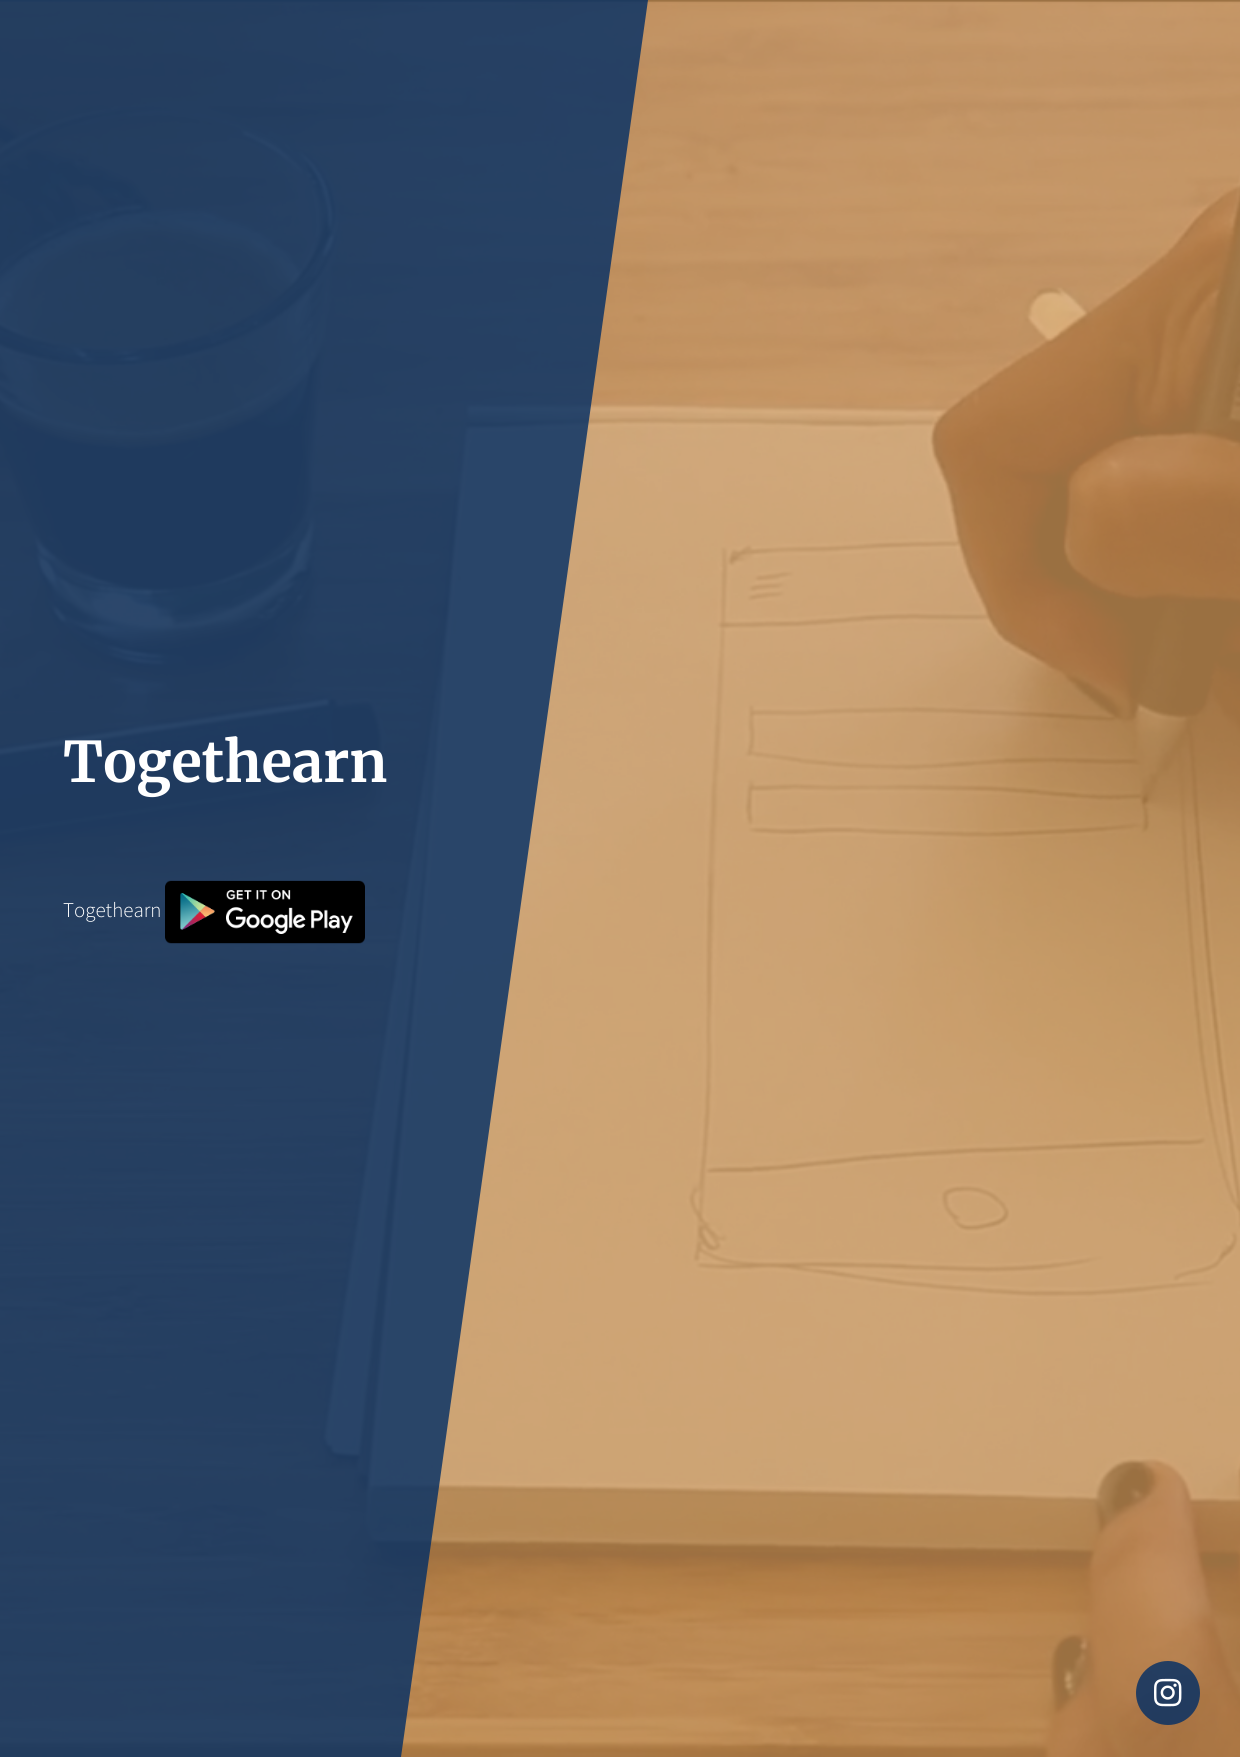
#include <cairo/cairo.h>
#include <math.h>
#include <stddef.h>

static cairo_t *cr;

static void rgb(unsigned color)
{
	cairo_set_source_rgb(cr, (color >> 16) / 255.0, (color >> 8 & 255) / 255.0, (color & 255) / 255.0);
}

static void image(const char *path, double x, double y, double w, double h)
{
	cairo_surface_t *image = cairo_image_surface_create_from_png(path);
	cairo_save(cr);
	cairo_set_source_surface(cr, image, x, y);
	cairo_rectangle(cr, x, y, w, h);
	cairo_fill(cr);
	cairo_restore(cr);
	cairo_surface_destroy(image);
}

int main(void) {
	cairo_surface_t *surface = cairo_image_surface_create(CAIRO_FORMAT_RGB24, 1240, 1757);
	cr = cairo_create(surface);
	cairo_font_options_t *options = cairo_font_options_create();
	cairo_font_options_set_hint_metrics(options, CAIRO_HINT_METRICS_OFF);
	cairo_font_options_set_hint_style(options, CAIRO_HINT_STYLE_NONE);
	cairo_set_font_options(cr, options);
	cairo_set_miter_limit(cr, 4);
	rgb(0xffffff);
	cairo_paint(cr);
	image("img/1.png", 0, 0, 1240, 1757);
	cairo_set_source_rgba(cr, 0, 0.18, 0.4, 0.8);
	cairo_new_path(cr);
	cairo_move_to(cr, 0, 0);
	cairo_line_to(cr, 648, 0);
	cairo_line_to(cr, 401, 1757);
	cairo_line_to(cr, -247, 1757);
	cairo_close_path(cr);
	cairo_fill(cr);
	image("img/2.png", 165, 880, 200, 64);
	cairo_arc(cr, 1168, 1693, 32, 0, 2 * M_PI);
	cairo_fill(cr);
	image("img/3.png", 1154, 1678, 28, 29);
	cairo_select_font_face(cr, "Merriweather", CAIRO_FONT_SLANT_NORMAL, CAIRO_FONT_WEIGHT_BOLD);
	cairo_set_font_size(cr, 56);
	rgb(0xffffff);
	cairo_move_to(cr, 63, 782);
	cairo_show_text(cr, "Togethearn");
	cairo_select_font_face(cr, "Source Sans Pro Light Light", CAIRO_FONT_SLANT_NORMAL, CAIRO_FONT_WEIGHT_NORMAL);
	cairo_set_font_size(cr, 21);
	cairo_move_to(cr, 63, 917);
	cairo_show_text(cr, "Togethearn");
	cairo_surface_write_to_png(surface, "page.png");
	cairo_font_options_destroy(options);
	cairo_destroy(cr);
	cairo_surface_destroy(surface);
	return 0;
}
